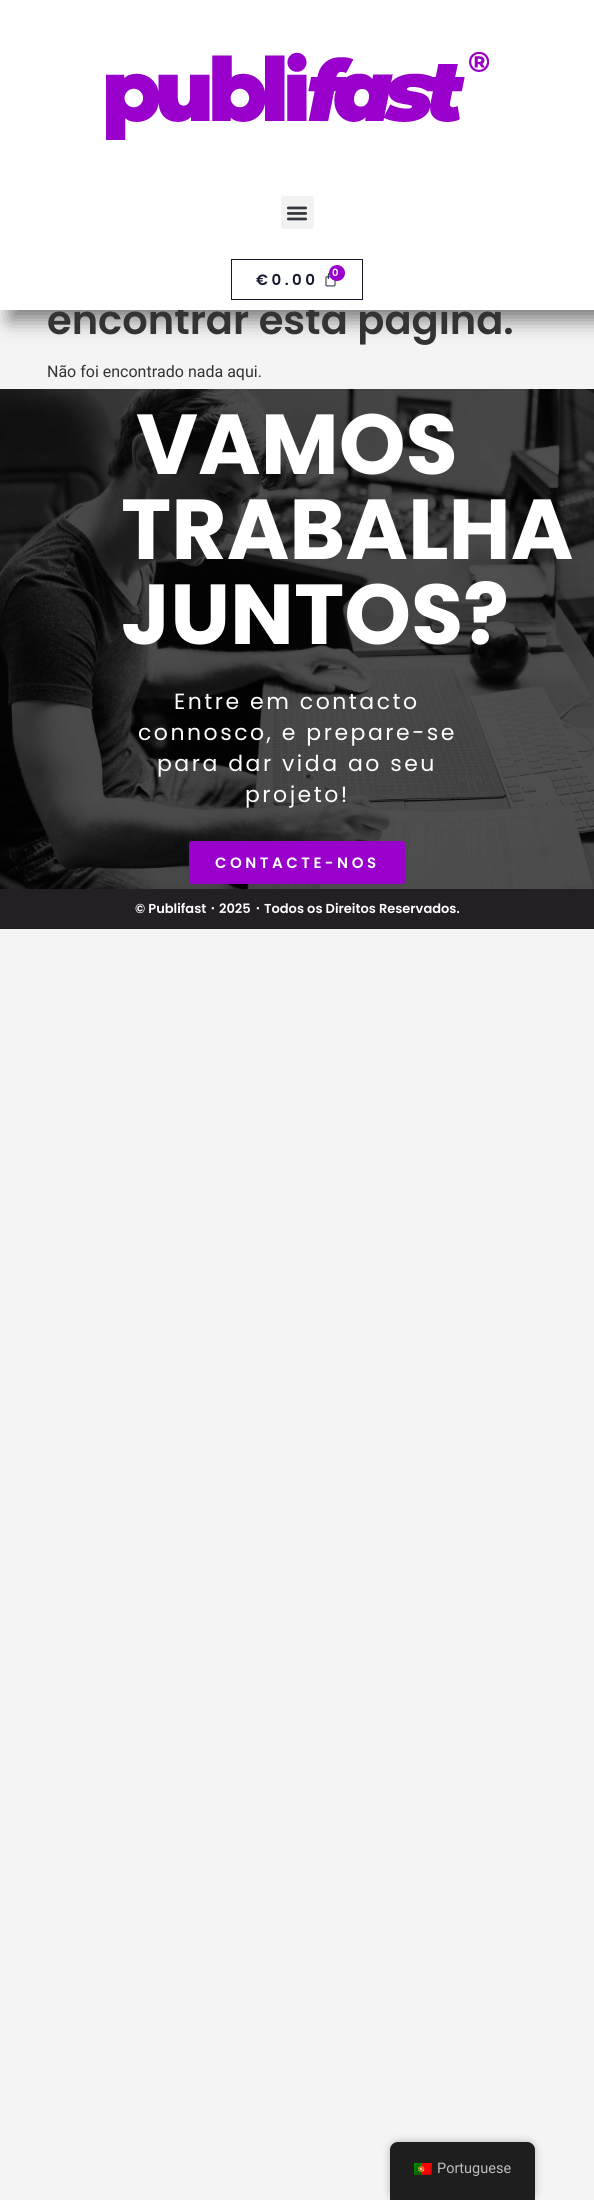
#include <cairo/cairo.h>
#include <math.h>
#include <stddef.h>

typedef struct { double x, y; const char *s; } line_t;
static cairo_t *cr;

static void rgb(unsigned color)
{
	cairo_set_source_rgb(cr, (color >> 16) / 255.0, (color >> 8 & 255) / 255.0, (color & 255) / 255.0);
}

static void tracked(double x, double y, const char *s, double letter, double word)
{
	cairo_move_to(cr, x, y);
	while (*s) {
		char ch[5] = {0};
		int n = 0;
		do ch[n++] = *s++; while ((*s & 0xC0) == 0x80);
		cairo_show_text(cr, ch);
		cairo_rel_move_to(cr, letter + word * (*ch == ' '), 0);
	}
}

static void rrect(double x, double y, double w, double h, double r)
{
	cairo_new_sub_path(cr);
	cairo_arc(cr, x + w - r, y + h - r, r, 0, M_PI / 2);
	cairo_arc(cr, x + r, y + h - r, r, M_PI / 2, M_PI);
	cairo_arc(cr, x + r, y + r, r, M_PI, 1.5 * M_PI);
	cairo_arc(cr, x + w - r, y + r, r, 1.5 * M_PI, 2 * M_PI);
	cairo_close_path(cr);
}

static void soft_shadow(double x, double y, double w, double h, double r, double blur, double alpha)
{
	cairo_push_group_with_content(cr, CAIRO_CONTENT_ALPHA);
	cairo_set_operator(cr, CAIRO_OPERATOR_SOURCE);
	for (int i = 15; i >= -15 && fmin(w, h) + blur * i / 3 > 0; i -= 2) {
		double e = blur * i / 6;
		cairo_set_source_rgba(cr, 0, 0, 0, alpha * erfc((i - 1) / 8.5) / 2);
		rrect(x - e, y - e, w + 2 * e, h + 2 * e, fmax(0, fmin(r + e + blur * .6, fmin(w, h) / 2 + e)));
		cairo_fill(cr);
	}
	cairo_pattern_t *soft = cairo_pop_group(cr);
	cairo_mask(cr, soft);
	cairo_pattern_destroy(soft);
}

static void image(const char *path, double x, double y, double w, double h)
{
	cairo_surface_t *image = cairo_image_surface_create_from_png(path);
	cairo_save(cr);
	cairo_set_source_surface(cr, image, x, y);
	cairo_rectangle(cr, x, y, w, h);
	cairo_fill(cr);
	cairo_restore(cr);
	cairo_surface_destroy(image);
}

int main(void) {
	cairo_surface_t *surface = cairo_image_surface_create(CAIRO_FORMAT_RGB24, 594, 2200);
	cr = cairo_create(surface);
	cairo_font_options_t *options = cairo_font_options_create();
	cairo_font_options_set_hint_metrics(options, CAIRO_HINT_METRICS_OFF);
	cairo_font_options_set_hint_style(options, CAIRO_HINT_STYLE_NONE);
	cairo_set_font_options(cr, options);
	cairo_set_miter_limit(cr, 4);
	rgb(0xf4f4f4);
	cairo_paint(cr);
	rgb(0x000000);
	soft_shadow(10, 10, 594, 310, 0, 10, 0.5);
	image("img/4.png", 0, 389, 594, 500);
	rgb(0x9900cc);
	rrect(190, 842, 214, 41, 2);
	cairo_fill_preserve(cr);
	cairo_stroke(cr);
	rgb(0x241e25);
	cairo_rectangle(cr, 0, 889, 594, 40);
	cairo_fill(cr);
	rgb(0x000000);
	soft_shadow(390, 2142, 145, 58, 8, 4, 0.25);
	rgb(0x1e1e1e);
	cairo_new_path(cr);
	cairo_move_to(cr, 398, 2142);
	cairo_line_to(cr, 527, 2142);
	cairo_curve_to(cr, 531.5, 2142, 535, 2145.5, 535, 2150);
	cairo_line_to(cr, 535, 2200);
	cairo_line_to(cr, 390, 2200);
	cairo_line_to(cr, 390, 2150);
	cairo_curve_to(cr, 390, 2145.5, 393.5, 2142, 398, 2142);
	cairo_close_path(cr);
	cairo_fill(cr);
	image("img/5.png", 414, 2163, 18, 12);
	cairo_select_font_face(cr, "Poppins SemiBold", CAIRO_FONT_SLANT_NORMAL, CAIRO_FONT_WEIGHT_NORMAL);
	cairo_set_font_size(cr, 40);
	rgb(0x333333);
	cairo_move_to(cr, 47, 334);
	cairo_show_text(cr, "encontrar esta página.");
	rgb(0xffffff);
	cairo_rectangle(cr, 0, 0, 594, 310);
	cairo_fill(cr);
	cairo_rectangle(cr, 231.5, 259.5, 131, 40);
	rgb(0x15192e);
	cairo_set_line_width(cr, 1);
	cairo_stroke(cr);
	image("img/3.png", 325, 272, 11, 15);
	rgb(0x9900cc);
	cairo_arc(cr, 337, 273, 8, 0, 2 * M_PI);
	cairo_fill(cr);
	cairo_set_font_size(cr, 10);
	rgb(0xffffff);
	tracked(332, 276, "0", 3.5, 0);
	cairo_set_font_size(cr, 15);
	rgb(0x15192e);
	tracked(256, 285, "€0.00", 3.5, 0);
	rgb(0xf2f2f2);
	rrect(281, 196, 33, 33, 3);
	cairo_fill(cr);
	image("img/2.png", 286, 206, 22, 15);
	image("img/1.png", 106, 52, 383, 88);
	cairo_select_font_face(cr, "Roboto", CAIRO_FONT_SLANT_NORMAL, CAIRO_FONT_WEIGHT_NORMAL);
	cairo_set_font_size(cr, 16);
	rgb(0x333333);
	cairo_move_to(cr, 47, 377);
	cairo_show_text(cr, "Não foi encontrado nada aqui.");
	cairo_select_font_face(cr, "Poppins", CAIRO_FONT_SLANT_NORMAL, CAIRO_FONT_WEIGHT_BOLD);
	cairo_set_font_size(cr, 85);
	rgb(0xffffff);
	{
		static const line_t items[] = {
			{136, 474, "VAMOS"},
			{121, 559, "TRABALHA"},
			{121, 644, "JUNTOS?"},
		};
		for (size_t i = 0; i < sizeof items / sizeof *items; i++) {
			cairo_move_to(cr, items[i].x, items[i].y);
			cairo_show_text(cr, items[i].s);
		}
	}
	cairo_select_font_face(cr, "Poppins", CAIRO_FONT_SLANT_NORMAL, CAIRO_FONT_WEIGHT_NORMAL);
	cairo_set_font_size(cr, 22);
	{
		static const line_t items[] = {
			{174, 709, "Entre em contacto"},
			{138, 740, "connosco, e prepare-se"},
			{157, 771, "para dar vida ao seu"},
			{245, 802, "projeto!"},
		};
		for (size_t i = 0; i < sizeof items / sizeof *items; i++) {
			tracked(items[i].x, items[i].y, items[i].s, 2.5, 0);
		}
	}
	cairo_select_font_face(cr, "Poppins SemiBold", CAIRO_FONT_SLANT_NORMAL, CAIRO_FONT_WEIGHT_NORMAL);
	cairo_set_font_size(cr, 15);
	tracked(215, 868, "CONTACTE-NOS", 3.5, 0);
	cairo_set_font_size(cr, 13);
	cairo_move_to(cr, 135, 913);
	cairo_show_text(cr, "© Publifast");
	cairo_select_font_face(cr, "WenQuanYi Zen Hei", CAIRO_FONT_SLANT_NORMAL, CAIRO_FONT_WEIGHT_BOLD);
	cairo_move_to(cr, 206, 913);
	cairo_show_text(cr, "・");
	cairo_select_font_face(cr, "Poppins SemiBold", CAIRO_FONT_SLANT_NORMAL, CAIRO_FONT_WEIGHT_NORMAL);
	cairo_move_to(cr, 219, 913);
	cairo_show_text(cr, "2025");
	cairo_select_font_face(cr, "WenQuanYi Zen Hei", CAIRO_FONT_SLANT_NORMAL, CAIRO_FONT_WEIGHT_BOLD);
	cairo_move_to(cr, 251, 913);
	cairo_show_text(cr, "・");
	cairo_select_font_face(cr, "Poppins SemiBold", CAIRO_FONT_SLANT_NORMAL, CAIRO_FONT_WEIGHT_NORMAL);
	cairo_move_to(cr, 264, 913);
	cairo_show_text(cr, "Todos os Direitos Reservados.");
	cairo_select_font_face(cr, "Roboto", CAIRO_FONT_SLANT_NORMAL, CAIRO_FONT_WEIGHT_NORMAL);
	cairo_set_font_size(cr, 14.5);
	rgb(0xbdbdbd);
	cairo_move_to(cr, 437, 2173);
	cairo_show_text(cr, "Portuguese");
	cairo_surface_write_to_png(surface, "page.png");
	cairo_font_options_destroy(options);
	cairo_destroy(cr);
	cairo_surface_destroy(surface);
	return 0;
}
